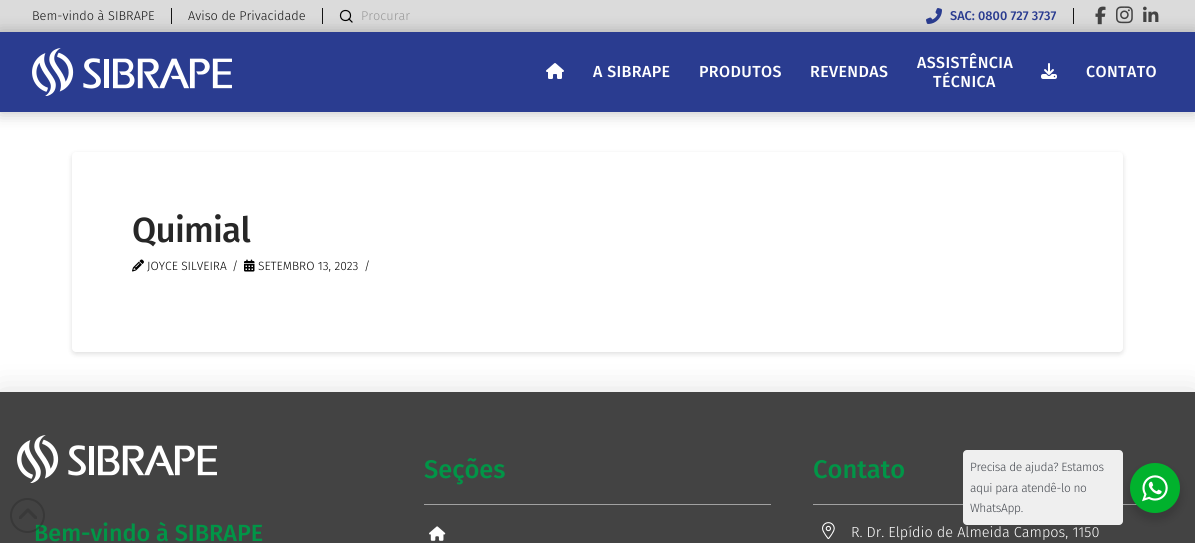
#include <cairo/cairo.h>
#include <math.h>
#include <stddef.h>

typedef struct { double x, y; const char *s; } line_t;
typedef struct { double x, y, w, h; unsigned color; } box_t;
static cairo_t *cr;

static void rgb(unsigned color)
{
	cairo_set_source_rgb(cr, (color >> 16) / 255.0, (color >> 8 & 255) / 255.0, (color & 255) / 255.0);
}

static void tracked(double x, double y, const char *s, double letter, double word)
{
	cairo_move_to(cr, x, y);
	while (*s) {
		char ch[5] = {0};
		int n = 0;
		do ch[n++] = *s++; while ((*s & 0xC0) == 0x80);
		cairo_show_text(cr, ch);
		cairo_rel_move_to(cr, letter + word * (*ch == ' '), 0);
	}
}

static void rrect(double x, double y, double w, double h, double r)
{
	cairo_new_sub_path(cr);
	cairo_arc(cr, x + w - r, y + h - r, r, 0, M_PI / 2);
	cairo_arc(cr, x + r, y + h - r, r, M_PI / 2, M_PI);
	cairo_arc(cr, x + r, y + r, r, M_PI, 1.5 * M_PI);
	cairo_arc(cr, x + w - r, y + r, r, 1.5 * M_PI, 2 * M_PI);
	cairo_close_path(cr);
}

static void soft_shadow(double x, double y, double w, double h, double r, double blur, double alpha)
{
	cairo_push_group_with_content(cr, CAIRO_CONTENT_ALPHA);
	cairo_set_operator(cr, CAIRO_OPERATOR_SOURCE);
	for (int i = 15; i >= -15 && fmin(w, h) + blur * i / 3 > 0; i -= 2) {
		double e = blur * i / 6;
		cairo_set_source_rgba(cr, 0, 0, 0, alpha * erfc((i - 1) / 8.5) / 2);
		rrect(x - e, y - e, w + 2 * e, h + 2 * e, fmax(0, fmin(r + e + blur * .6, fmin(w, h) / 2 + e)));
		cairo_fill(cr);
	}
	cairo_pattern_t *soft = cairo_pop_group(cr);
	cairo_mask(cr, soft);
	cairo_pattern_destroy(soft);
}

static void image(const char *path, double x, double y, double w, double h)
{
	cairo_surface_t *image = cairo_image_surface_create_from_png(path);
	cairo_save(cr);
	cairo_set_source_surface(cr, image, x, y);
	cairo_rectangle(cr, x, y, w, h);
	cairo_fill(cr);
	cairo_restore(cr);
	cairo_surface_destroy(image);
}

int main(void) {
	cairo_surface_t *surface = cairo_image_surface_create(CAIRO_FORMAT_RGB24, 1195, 543);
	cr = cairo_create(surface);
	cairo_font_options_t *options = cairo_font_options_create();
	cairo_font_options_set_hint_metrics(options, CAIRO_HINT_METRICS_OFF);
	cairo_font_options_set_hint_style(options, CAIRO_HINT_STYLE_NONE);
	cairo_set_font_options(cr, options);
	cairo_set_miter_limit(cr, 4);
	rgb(0xffffff);
	cairo_paint(cr);
	{
		static const box_t items[] = {
			{0, 0, 1195, 32, 0xdbdbdb},
			{171, 8, 1, 16, 0x141414},
			{322, 8, 1, 16, 0x141414},
		};
		for (size_t i = 0; i < sizeof items / sizeof *items; i++) {
			rgb(items[i].color);
			cairo_rectangle(cr, items[i].x, items[i].y, items[i].w, items[i].h);
			cairo_fill(cr);
		}
	}
	cairo_arc(cr, 345.5, 15.5, 5, 0, 2 * M_PI);
	rgb(0x000000);
	cairo_set_line_width(cr, 1.2);
	cairo_stroke(cr);
	cairo_new_path(cr);
	cairo_move_to(cr, 352, 22);
	cairo_line_to(cr, 349, 19);
	cairo_set_line_cap(cr, CAIRO_LINE_CAP_SQUARE);
	cairo_stroke(cr);
	image("img/2.png", 926, 8, 16, 16);
	rgb(0x141414);
	cairo_rectangle(cr, 1073, 8, 1, 16);
	cairo_fill(cr);
	image("img/3.png", 1095, 6, 11, 19);
	image("img/4.png", 1116, 6, 17, 18);
	image("img/5.png", 1143, 6, 16, 16);
	rgb(0x000000);
	soft_shadow(0, 33, 1195, 80, 0, 8, 0.25);
	rgb(0x2a3c90);
	cairo_rectangle(cr, 0, 32, 1195, 80);
	cairo_fill(cr);
	image("img/6.png", 32, 48, 200, 48);
	image("img/7.png", 546, 63, 18, 16);
	image("img/8.png", 1041, 63, 16, 16);
	rgb(0x000000);
	soft_shadow(72, 154, 1051, 200, 4, 2.5, 0.13);
	rgb(0xffffff);
	rrect(72, 152, 1051, 200, 4);
	cairo_fill(cr);
	image("img/9.png", 132, 259, 12, 13);
	image("img/10.png", 244, 259, 11, 13);
	rgb(0x000000);
	soft_shadow(0, 395, 1195, 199, 0, 17, 0.15);
	rgb(0x434343);
	cairo_rectangle(cr, 0, 392, 1195, 151);
	cairo_fill(cr);
	image("img/11.png", 17, 435, 200, 48);
	rgb(0xa1a1a1);
	cairo_rectangle(cr, 424, 504, 347, 1);
	cairo_fill(cr);
	image("img/12.png", 429, 526, 17, 15);
	cairo_rectangle(cr, 813, 504, 324, 1);
	cairo_fill(cr);
	image("img/13.png", 822, 522, 13, 18);
	rgb(0x000000);
	soft_shadow(1128, 467, 54, 54, 27, 4, 0.14);
	rgb(0xefefef);
	rrect(963, 450, 160, 75, 4);
	cairo_fill(cr);
	rgb(0x01b22d);
	cairo_arc(cr, 1155, 488, 25, 0, 2 * M_PI);
	cairo_fill(cr);
	image("img/14.png", 1142, 475, 26, 27);
	cairo_select_font_face(cr, "Fira Sans Light", CAIRO_FONT_SLANT_NORMAL, CAIRO_FONT_WEIGHT_NORMAL);
	cairo_set_font_size(cr, 12.75);
	rgb(0x141414);
	cairo_move_to(cr, 32, 20);
	cairo_show_text(cr, "Bem-vindo à SIBRAPE");
	cairo_move_to(cr, 188, 20);
	cairo_show_text(cr, "Aviso de Privacidade");
	rgb(0x999999);
	cairo_move_to(cr, 361, 20);
	cairo_show_text(cr, "Procurar");
	cairo_select_font_face(cr, "Fira Sans Medium", CAIRO_FONT_SLANT_NORMAL, CAIRO_FONT_WEIGHT_NORMAL);
	rgb(0x2a3c90);
	cairo_move_to(cr, 950, 20);
	cairo_show_text(cr, "SAC: 0800 727 3737");
	cairo_set_font_size(cr, 16);
	rgb(0xffffff);
	{
		static const line_t items[] = {
			{593, 77, "A SIBRAPE"},
			{699, 77, "PRODUTOS"},
			{810, 77, "REVENDAS"},
			{917, 68, "ASSISTÊNCIA"},
			{933, 87, "TÉCNICA"},
			{1086, 77, "CONTATO"},
		};
		for (size_t i = 0; i < sizeof items / sizeof *items; i++) {
			tracked(items[i].x, items[i].y, items[i].s, 0.4, 0);
		}
	}
	cairo_set_font_size(cr, 35);
	rgb(0x272727);
	tracked(132, 242, "Quimial", -0.75, 0);
	cairo_select_font_face(cr, "Fira Sans Light", CAIRO_FONT_SLANT_NORMAL, CAIRO_FONT_WEIGHT_NORMAL);
	cairo_set_font_size(cr, 12);
	rgb(0x000000);
	{
		static const line_t items[] = {
			{147, 270, "JOYCE SILVEIRA"},
			{232, 270, "/"},
			{258, 270, "SETEMBRO 13, 2023"},
			{364, 270, "/"},
		};
		for (size_t i = 0; i < sizeof items / sizeof *items; i++) {
			cairo_move_to(cr, items[i].x, items[i].y);
			cairo_show_text(cr, items[i].s);
		}
	}
	cairo_select_font_face(cr, "Fira Sans Medium", CAIRO_FONT_SLANT_NORMAL, CAIRO_FONT_WEIGHT_NORMAL);
	cairo_set_font_size(cr, 23.4);
	rgb(0x019547);
	cairo_move_to(cr, 34, 541);
	cairo_show_text(cr, "Bem-vindo à SIBRAPE");
	cairo_new_path(cr);
	cairo_arc(cr, 27.5, 515.5, 16.5, 0, 2 * M_PI);
	cairo_set_source_rgba(cr, 0.153, 0.153, 0.153, 0.38);
	cairo_set_line_width(cr, 2);
	cairo_set_line_cap(cr, CAIRO_LINE_CAP_BUTT);
	cairo_stroke(cr);
	image("img/1.png", 19, 508, 18, 11);
	cairo_set_font_size(cr, 25.5);
	rgb(0x019547);
	cairo_move_to(cr, 424, 478);
	cairo_show_text(cr, "Seções");
	cairo_move_to(cr, 813, 478);
	cairo_show_text(cr, "Contato");
	cairo_select_font_face(cr, "Fira Sans Light", CAIRO_FONT_SLANT_NORMAL, CAIRO_FONT_WEIGHT_NORMAL);
	cairo_set_font_size(cr, 14.5);
	rgb(0xffffff);
	cairo_move_to(cr, 851, 537);
	cairo_show_text(cr, "R. Dr. Elpídio de Almeida Campos, 1150");
	cairo_set_font_size(cr, 12);
	rgb(0x43474e);
	{
		static const line_t items[] = {
			{970, 471, "Precisa de ajuda? Estamos"},
			{970, 492, "aqui para atendê-lo no"},
			{970, 512, "WhatsApp."},
		};
		for (size_t i = 0; i < sizeof items / sizeof *items; i++) {
			tracked(items[i].x, items[i].y, items[i].s, -0.35, 0);
		}
	}
	cairo_surface_write_to_png(surface, "page.png");
	cairo_font_options_destroy(options);
	cairo_destroy(cr);
	cairo_surface_destroy(surface);
	return 0;
}
